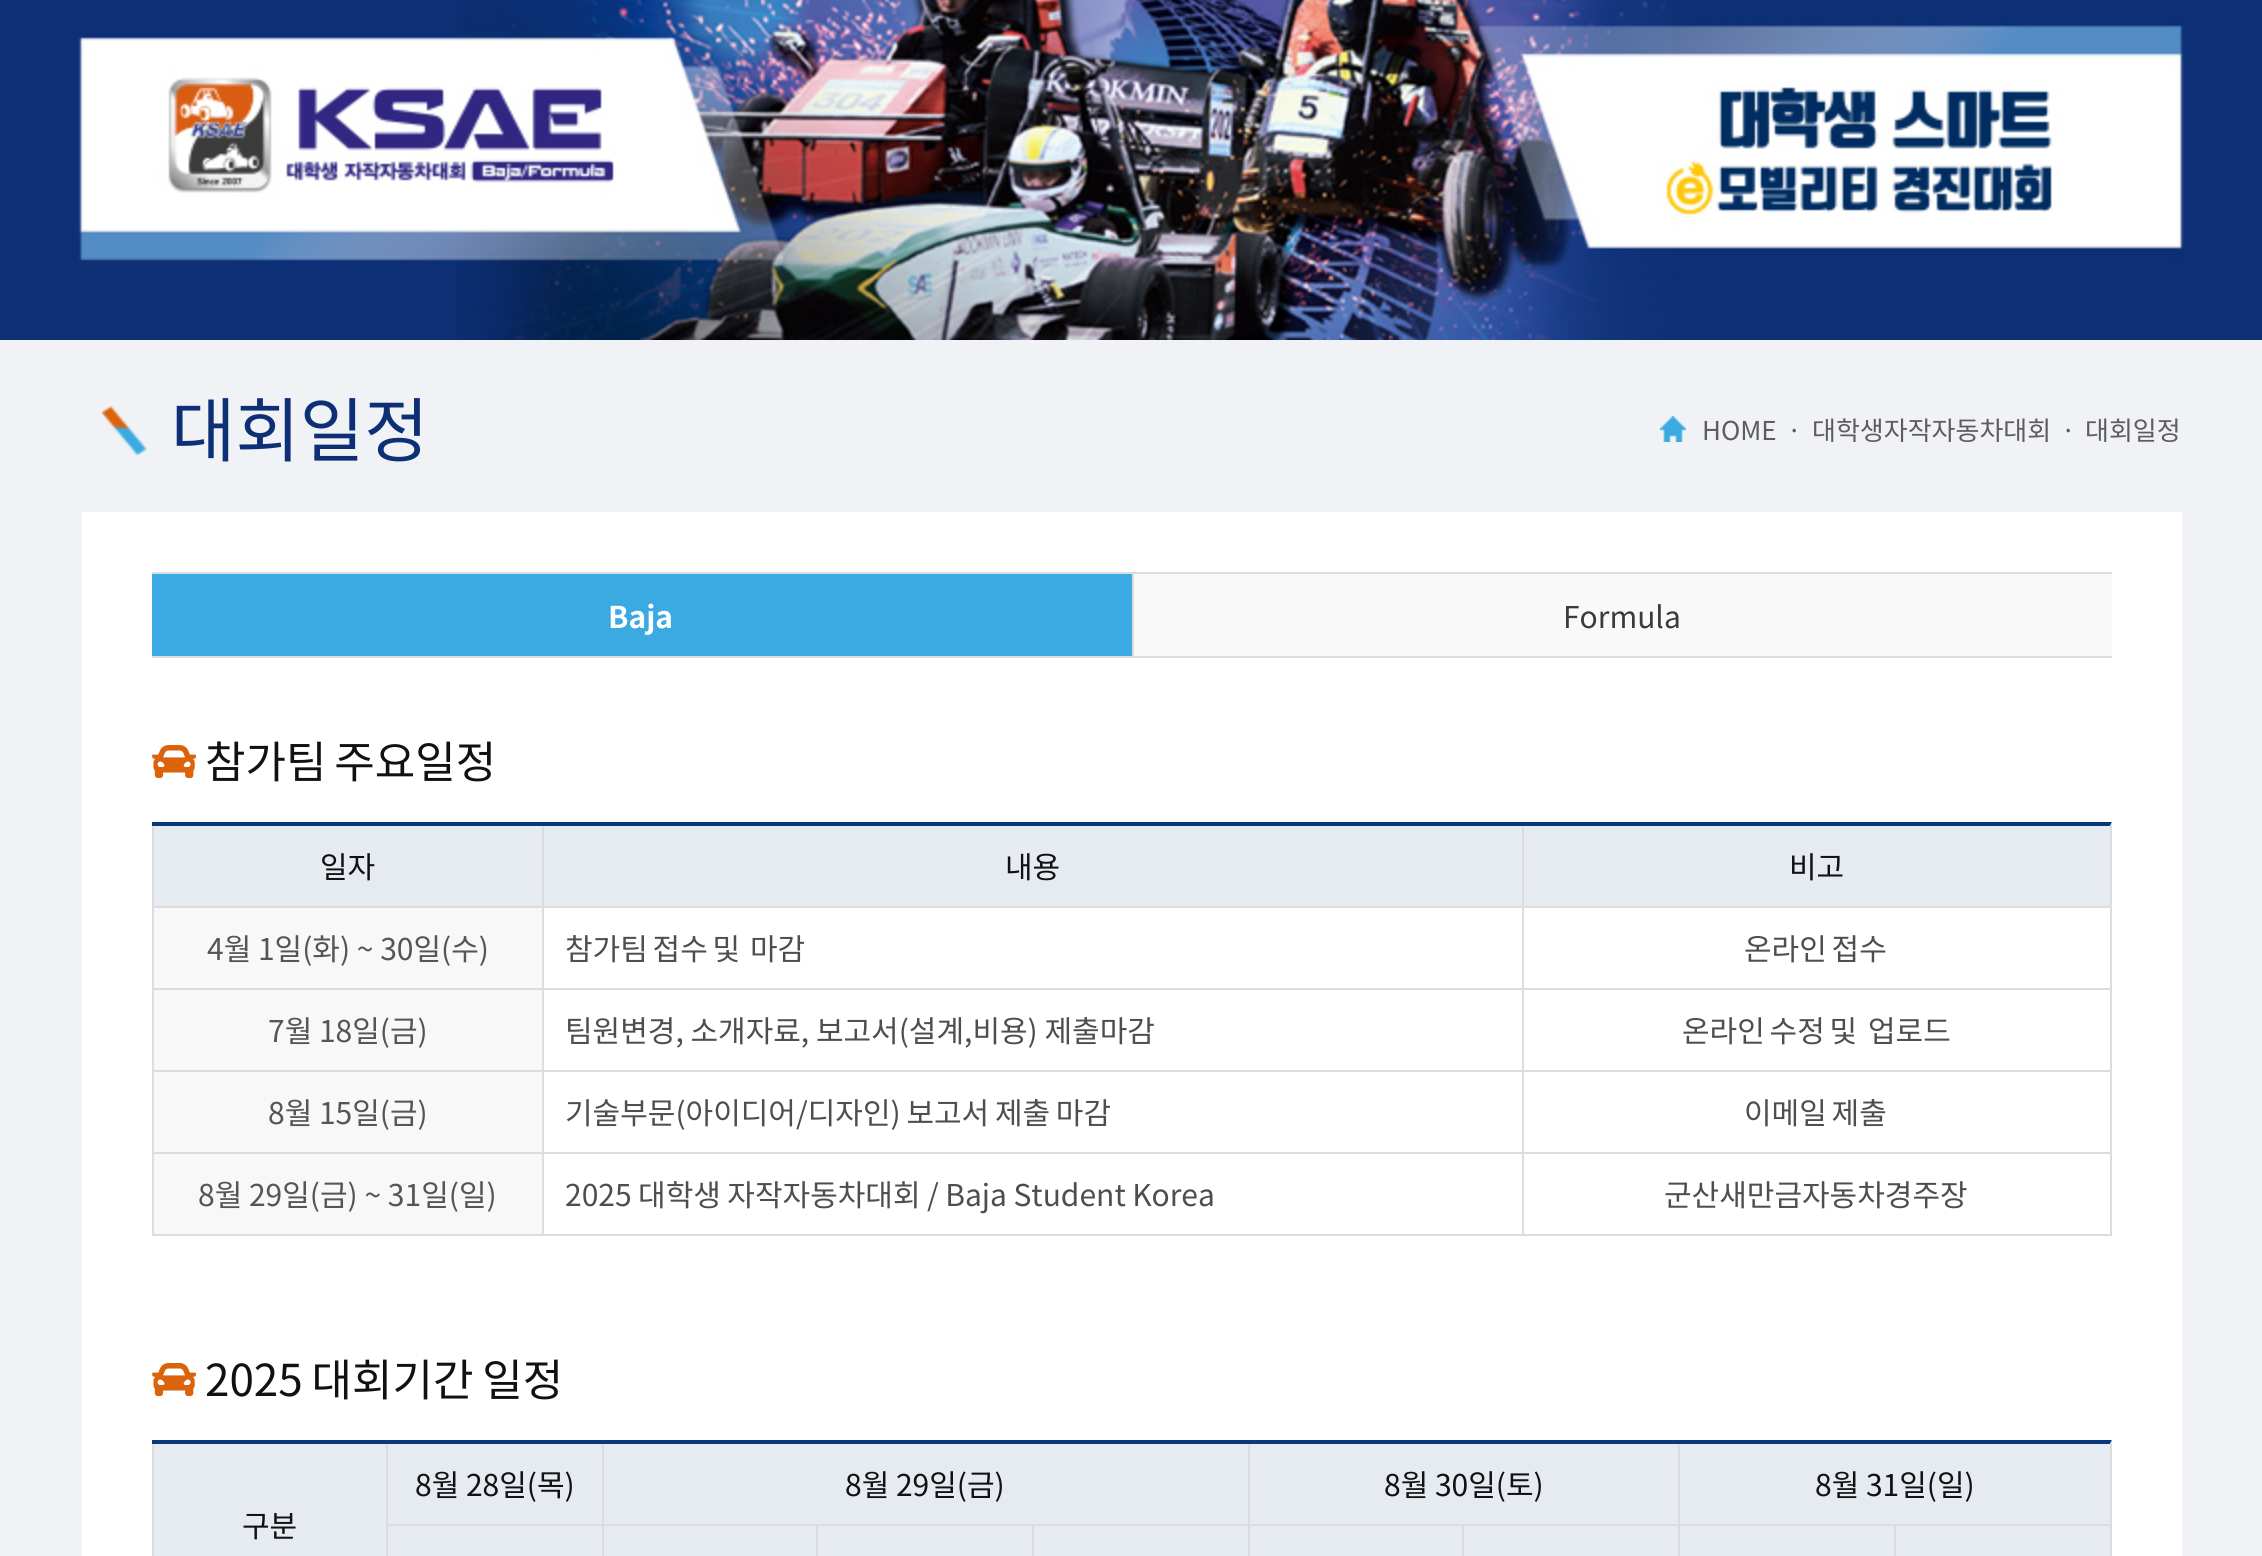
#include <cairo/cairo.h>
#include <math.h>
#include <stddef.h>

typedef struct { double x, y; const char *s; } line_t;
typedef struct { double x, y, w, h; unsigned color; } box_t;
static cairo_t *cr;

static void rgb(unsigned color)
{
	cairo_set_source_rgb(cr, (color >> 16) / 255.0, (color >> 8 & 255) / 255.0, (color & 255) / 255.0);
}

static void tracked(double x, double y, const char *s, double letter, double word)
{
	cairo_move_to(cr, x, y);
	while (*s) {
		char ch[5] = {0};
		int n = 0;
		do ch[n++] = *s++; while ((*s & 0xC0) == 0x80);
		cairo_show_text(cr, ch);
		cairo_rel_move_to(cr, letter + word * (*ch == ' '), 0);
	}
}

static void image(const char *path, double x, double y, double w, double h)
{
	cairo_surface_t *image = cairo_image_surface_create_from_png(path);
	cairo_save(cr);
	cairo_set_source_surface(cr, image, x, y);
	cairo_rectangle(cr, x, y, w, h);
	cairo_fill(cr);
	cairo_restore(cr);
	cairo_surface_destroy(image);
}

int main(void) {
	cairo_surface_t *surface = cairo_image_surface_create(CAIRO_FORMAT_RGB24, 2262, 1556);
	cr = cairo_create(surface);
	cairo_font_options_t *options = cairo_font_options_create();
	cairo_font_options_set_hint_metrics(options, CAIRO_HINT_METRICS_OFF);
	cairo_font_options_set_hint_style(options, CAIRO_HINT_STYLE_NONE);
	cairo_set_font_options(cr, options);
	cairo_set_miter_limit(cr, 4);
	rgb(0xf0f2f5);
	cairo_paint(cr);
	rgb(0x0d2f76);
	cairo_rectangle(cr, 0, 0, 2262, 340);
	cairo_fill(cr);
	image("img/1.png", 78, 0, 2106, 340);
	image("img/2.png", 102, 406, 45, 50);
	image("img/3.png", 1660, 416, 26, 26);
	{
		static const box_t items[] = {
			{82, 512, 2100, 1044, 0xffffff},
			{152, 572, 1960, 2, 0xdcdcdc},
			{152, 656, 1960, 2, 0xdcdcdc},
			{152, 574, 980, 82, 0x3baae2},
			{1134, 574, 978, 82, 0xf9f9f9},
			{1132, 574, 2, 82, 0xdcdcdc},
		};
		for (size_t i = 0; i < sizeof items / sizeof *items; i++) {
			rgb(items[i].color);
			cairo_rectangle(cr, items[i].x, items[i].y, items[i].w, items[i].h);
			cairo_fill(cr);
		}
	}
	image("img/4.png", 152, 745, 45, 33);
	rgb(0x09397d);
	cairo_new_path(cr);
	cairo_move_to(cr, 152, 822);
	cairo_line_to(cr, 2112, 822);
	cairo_line_to(cr, 2110, 826);
	cairo_line_to(cr, 152, 826);
	cairo_close_path(cr);
	cairo_fill(cr);
	rgb(0xdcdcdc);
	cairo_new_path(cr);
	cairo_move_to(cr, 2112, 822);
	cairo_line_to(cr, 2112, 1236);
	cairo_line_to(cr, 2110, 1234);
	cairo_line_to(cr, 2110, 826);
	cairo_close_path(cr);
	cairo_fill(cr);
	{
		static const box_t items[] = {
			{152, 1234, 1960, 2, 0xdcdcdc},
			{154, 826, 388, 80, 0xe6ebf2},
			{152, 826, 2, 80, 0xdcdcdc},
			{544, 826, 978, 80, 0xe6ebf2},
			{542, 826, 2, 80, 0xdcdcdc},
			{1524, 826, 586, 80, 0xe6ebf2},
			{1522, 826, 2, 80, 0xdcdcdc},
			{154, 908, 388, 80, 0xf8f8f8},
			{152, 906, 1958, 2, 0xdcdcdc},
			{152, 906, 2, 82, 0xdcdcdc},
			{542, 906, 2, 82, 0xdcdcdc},
			{1522, 906, 2, 82, 0xdcdcdc},
			{154, 990, 388, 80, 0xf8f8f8},
			{152, 988, 1958, 2, 0xdcdcdc},
			{152, 988, 2, 82, 0xdcdcdc},
			{542, 988, 2, 82, 0xdcdcdc},
			{1522, 988, 2, 82, 0xdcdcdc},
			{154, 1072, 388, 80, 0xf8f8f8},
			{152, 1070, 1958, 2, 0xdcdcdc},
			{152, 1070, 2, 82, 0xdcdcdc},
			{542, 1070, 2, 82, 0xdcdcdc},
			{1522, 1070, 2, 82, 0xdcdcdc},
			{154, 1154, 388, 80, 0xf8f8f8},
			{152, 1152, 1958, 2, 0xdcdcdc},
			{152, 1152, 2, 82, 0xdcdcdc},
			{542, 1152, 2, 82, 0xdcdcdc},
			{1522, 1152, 2, 82, 0xdcdcdc},
		};
		for (size_t i = 0; i < sizeof items / sizeof *items; i++) {
			rgb(items[i].color);
			cairo_rectangle(cr, items[i].x, items[i].y, items[i].w, items[i].h);
			cairo_fill(cr);
		}
	}
	image("img/4.png", 152, 1363, 45, 33);
	rgb(0x09397d);
	cairo_new_path(cr);
	cairo_move_to(cr, 152, 1440);
	cairo_line_to(cr, 2112, 1440);
	cairo_line_to(cr, 2110, 1444);
	cairo_line_to(cr, 152, 1444);
	cairo_close_path(cr);
	cairo_fill(cr);
	rgb(0xdcdcdc);
	cairo_new_path(cr);
	cairo_move_to(cr, 2112, 1440);
	cairo_line_to(cr, 2112, 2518);
	cairo_line_to(cr, 2110, 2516);
	cairo_line_to(cr, 2110, 1444);
	cairo_close_path(cr);
	cairo_fill(cr);
	{
		static const box_t items[] = {
			{388, 1444, 214, 80, 0xe6ebf2},
			{386, 1444, 2, 80, 0xdcdcdc},
			{604, 1444, 644, 80, 0xe6ebf2},
			{602, 1444, 2, 80, 0xdcdcdc},
			{1250, 1444, 428, 80, 0xe6ebf2},
			{1248, 1444, 2, 80, 0xdcdcdc},
			{1680, 1444, 430, 80, 0xe6ebf2},
			{1678, 1444, 2, 80, 0xdcdcdc},
			{154, 1444, 232, 112, 0xe6ebf2},
			{152, 1444, 2, 112, 0xdcdcdc},
			{388, 1526, 214, 30, 0xe6ebf2},
			{386, 1524, 1724, 2, 0xdcdcdc},
			{386, 1524, 2, 32, 0xdcdcdc},
			{604, 1526, 212, 30, 0xe6ebf2},
			{602, 1524, 2, 32, 0xdcdcdc},
			{818, 1526, 214, 30, 0xe6ebf2},
			{816, 1524, 2, 32, 0xdcdcdc},
			{1034, 1526, 214, 30, 0xe6ebf2},
			{1032, 1524, 2, 32, 0xdcdcdc},
			{1250, 1526, 212, 30, 0xe6ebf2},
			{1248, 1524, 2, 32, 0xdcdcdc},
			{1464, 1526, 214, 30, 0xe6ebf2},
			{1462, 1524, 2, 32, 0xdcdcdc},
			{1680, 1526, 214, 30, 0xe6ebf2},
			{1678, 1524, 2, 32, 0xdcdcdc},
			{1896, 1526, 214, 30, 0xe6ebf2},
			{1894, 1524, 2, 32, 0xdcdcdc},
		};
		for (size_t i = 0; i < sizeof items / sizeof *items; i++) {
			rgb(items[i].color);
			cairo_rectangle(cr, items[i].x, items[i].y, items[i].w, items[i].h);
			cairo_fill(cr);
		}
	}
	cairo_select_font_face(cr, "Noto Sans KR", CAIRO_FONT_SLANT_NORMAL, CAIRO_FONT_WEIGHT_NORMAL);
	cairo_set_font_size(cr, 70);
	rgb(0x0d2f75);
	cairo_move_to(cr, 171, 456);
	cairo_show_text(cr, "대회일정");
	cairo_set_font_size(cr, 26);
	rgb(0x5d5d5d);
	{
		static const line_t items[] = {
			{1702, 440, "HOME"},
			{1787, 440, "·"},
			{1812, 440, "대학생자작자동차대회"},
			{2061, 440, "·"},
			{2085, 440, "대회일정"},
		};
		for (size_t i = 0; i < sizeof items / sizeof *items; i++) {
			cairo_move_to(cr, items[i].x, items[i].y);
			cairo_show_text(cr, items[i].s);
		}
	}
	cairo_select_font_face(cr, "Noto Sans KR", CAIRO_FONT_SLANT_NORMAL, CAIRO_FONT_WEIGHT_BOLD);
	cairo_set_font_size(cr, 30);
	rgb(0xffffff);
	cairo_move_to(cr, 608, 628);
	cairo_show_text(cr, "Baja");
	cairo_select_font_face(cr, "Noto Sans KR", CAIRO_FONT_SLANT_NORMAL, CAIRO_FONT_WEIGHT_NORMAL);
	rgb(0x3f3a39);
	cairo_move_to(cr, 1563, 628);
	cairo_show_text(cr, "Formula");
	cairo_set_font_size(cr, 44);
	rgb(0x111111);
	tracked(205, 778, "참가팀 주요일정", 0, -2);
	cairo_set_font_size(cr, 30);
	{
		static const line_t items[] = {
			{320, 878, "일자"},
			{1005, 878, "내용"},
			{1789, 878, "비고"},
		};
		for (size_t i = 0; i < sizeof items / sizeof *items; i++) {
			cairo_move_to(cr, items[i].x, items[i].y);
			cairo_show_text(cr, items[i].s);
		}
	}
	rgb(0x555555);
	cairo_move_to(cr, 207, 960);
	cairo_show_text(cr, "4월 1일(화) ~ 30일(수)");
	rgb(0x4e4e4e);
	tracked(565, 960, "참가팀 접수 및", 0, -2);
	tracked(750, 960, "마감", 0, -2);
	tracked(1744, 960, "온라인 접수", 0, -2);
	rgb(0x555555);
	cairo_move_to(cr, 268, 1042);
	cairo_show_text(cr, "7월 18일(금)");
	rgb(0x4e4e4e);
	cairo_move_to(cr, 565, 1042);
	cairo_show_text(cr, "팀원변경, 소개자료, 보고서(설계,비용) 제출마감");
	tracked(1682, 1042, "온라인 수정 및", 0, -2);
	tracked(1868, 1042, "업로드", 0, -2);
	rgb(0x555555);
	cairo_move_to(cr, 268, 1124);
	cairo_show_text(cr, "8월 15일(금)");
	rgb(0x4e4e4e);
	tracked(565, 1124, "기술부문(아이디어/디자인) 보고서 제출 마감", 0, -1);
	tracked(1744, 1124, "이메일 제출", 0, -2);
	rgb(0x555555);
	cairo_move_to(cr, 198, 1206);
	cairo_show_text(cr, "8월 29일(금) ~ 31일(일)");
	rgb(0x4e4e4e);
	tracked(565, 1206, "2025 대학생 자작자동차대회 / Baja Student Korea", 0, -0.25);
	cairo_move_to(cr, 1664, 1206);
	cairo_show_text(cr, "군산새만금자동차경주장");
	cairo_set_font_size(cr, 44);
	rgb(0x111111);
	tracked(205, 1396, "2025 대회기간 일정", 0, -1);
	cairo_set_font_size(cr, 30);
	{
		static const line_t items[] = {
			{415, 1496, "8월 28일(목)"},
			{845, 1496, "8월 29일(금)"},
			{1384, 1496, "8월 30일(토)"},
			{1815, 1496, "8월 31일(일)"},
			{242, 1537, "구분"},
		};
		for (size_t i = 0; i < sizeof items / sizeof *items; i++) {
			cairo_move_to(cr, items[i].x, items[i].y);
			cairo_show_text(cr, items[i].s);
		}
	}
	cairo_surface_write_to_png(surface, "page.png");
	cairo_font_options_destroy(options);
	cairo_destroy(cr);
	cairo_surface_destroy(surface);
	return 0;
}
